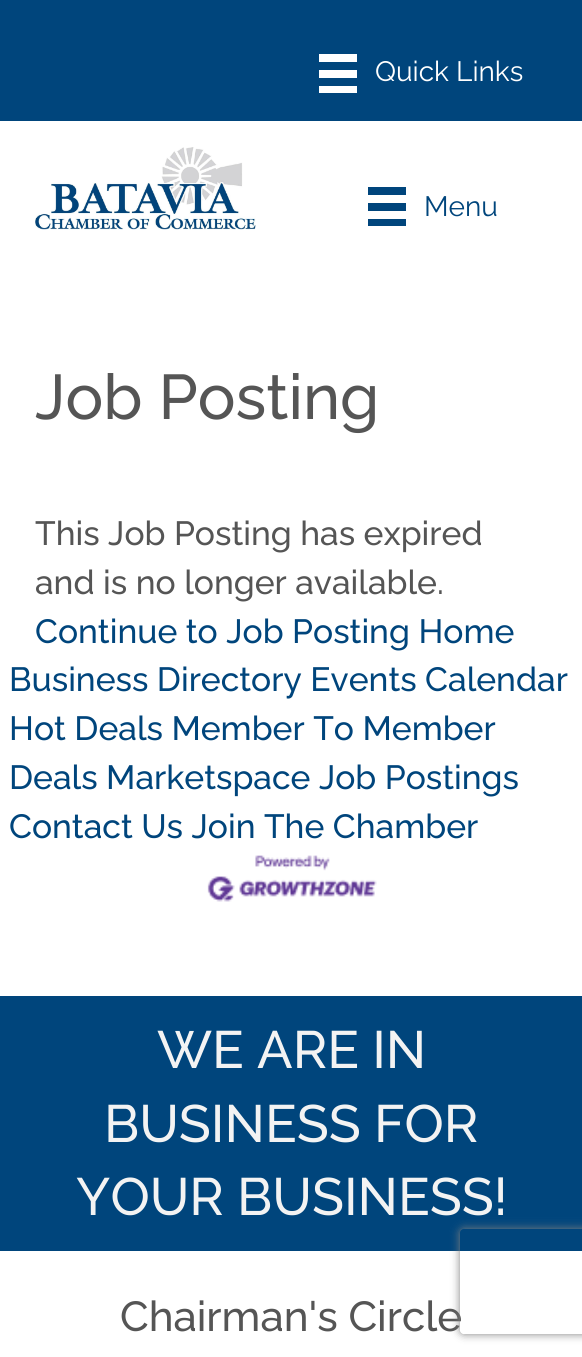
#include <cairo.h>
#include <math.h>
#include <stddef.h>

static cairo_t *c;
static void C(unsigned color){cairo_set_source_rgb(c, (color >> 16) / 255.0, (color >> 8 & 255) / 255.0, (color & 255) / 255.0);}
static void F(const char *family, double size, int italic, int bold){cairo_select_font_face(c, family, italic ? CAIRO_FONT_SLANT_ITALIC : CAIRO_FONT_SLANT_NORMAL,bold ? CAIRO_FONT_WEIGHT_BOLD : CAIRO_FONT_WEIGHT_NORMAL);cairo_set_font_size(c, size);}
static void T(double x, double y, const char *s){cairo_move_to(c, x, y);cairo_show_text(c, s);}
static void R(double x, double y, double w, double h){cairo_rectangle(c, x, y, w, h);cairo_fill(c);}
static void Q(double x, double y, double w, double h, double r){cairo_new_sub_path(c);cairo_arc(c, x + w - r, y + h - r, r, 0, M_PI / 2);cairo_arc(c, x + r, y + h - r, r, M_PI / 2, M_PI);cairo_arc(c, x + r, y + r, r, M_PI, 1.5 * M_PI);cairo_arc(c, x + w - r, y + r, r, 1.5 * M_PI, 2 * M_PI);cairo_close_path(c);}
static void S(double x, double y, double w, double h, double r, double blur, double alpha){cairo_push_group_with_content(c, CAIRO_CONTENT_ALPHA);cairo_set_operator(c, CAIRO_OPERATOR_SOURCE);for (int i = 15; i >= -15 && fmin(w, h) + blur * i / 3 > 0; i -= 2) {double e = blur * i / 6;cairo_set_source_rgba(c, 0, 0, 0, alpha * erfc((i - 1) / 8.5) / 2);Q(x - e, y - e, w + 2 * e, h + 2 * e, fmax(0, fmin(r + e + blur * .6, fmin(w, h) / 2 + e)));cairo_fill(c);}cairo_pattern_t *soft = cairo_pop_group(c);cairo_mask(c, soft);cairo_pattern_destroy(soft);}
static void I(const char *path, double x, double y, double w, double h){cairo_surface_t *image = cairo_image_surface_create_from_png(path);cairo_save(c);cairo_set_source_surface(c, image, x, y);cairo_rectangle(c, x, y, w, h);cairo_fill(c);cairo_restore(c);cairo_surface_destroy(image);}
int main(void) {
cairo_surface_t *surface = cairo_image_surface_create(CAIRO_FORMAT_RGB24, 582, 1357);
c = cairo_create(surface);
cairo_font_options_t *options = cairo_font_options_create();
cairo_font_options_set_hint_metrics(options, CAIRO_HINT_METRICS_OFF);
cairo_font_options_set_hint_style(options, CAIRO_HINT_STYLE_NONE);
cairo_set_font_options(c, options);
cairo_set_miter_limit(c, 4);
C(0xffffff);
cairo_paint(c);
C(0x00457c);
R(0,0,582,121);
C(0xffffff);
R(319,54,38,8);
R(319,70,38,8);
R(319,86,38,7);
F("Raleway",28,0,0);
T(375,81,"Quick Links");
I("1.png",35,147,221,83);
C(0x00457c);
R(368,187,38,8);
R(368,203,38,8);
R(368,219,38,7);
T(424,216,"Menu");
F("Raleway Medium",63,0,0);
C(0x555555);
T(35,419,"Job Posting");
F("Raleway Medium",33.6,0,0);
T(35,545,"This Job Posting has expired");
T(35,594,"and is no longer available.");
C(0x00457c);
T(35,643,"Continue to Job Posting Home");
T(9,691,"Business Directory Events Calendar");
T(9,740,"Hot Deals Member To Member");
T(9,789,"Deals Marketspace Job Postings");
T(9,838,"Contact Us Join The Chamber");
I("2.png",207,855,170,47);
R(0,996,582,255);
F("Raleway Medium",52.5,0,0);
C(0xf3f3f3);
T(157,1068,"WE ARE IN");
T(104,1142,"BUSINESS FOR");
T(76,1215,"YOUR BUSINESS!");
F("Raleway Medium",42,0,0);
C(0x555555);
T(120,1331,"Chairman's Circle");
cairo_save(c);
cairo_set_fill_rule(c,CAIRO_FILL_RULE_EVEN_ODD);
cairo_new_path(c);
cairo_move_to(c,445,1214);
cairo_line_to(c,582,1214);
cairo_line_to(c,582,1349);
cairo_line_to(c,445,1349);
cairo_close_path(c);
cairo_move_to(c,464,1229);
cairo_line_to(c,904,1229);
cairo_curve_to(c,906,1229,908,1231,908,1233);
cairo_line_to(c,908,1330);
cairo_curve_to(c,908,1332,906,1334,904,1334);
cairo_line_to(c,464,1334);
cairo_curve_to(c,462,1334,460,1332,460,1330);
cairo_line_to(c,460,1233);
cairo_curve_to(c,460,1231,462,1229,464,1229);
cairo_close_path(c);
cairo_clip(c);
C(0x808080);
S(460,1229,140,105,4,4.5,1);
cairo_restore(c);
cairo_surface_write_to_png(surface, "o.png");
cairo_font_options_destroy(options);
cairo_destroy(c);
cairo_surface_destroy(surface);
return 0;
}
